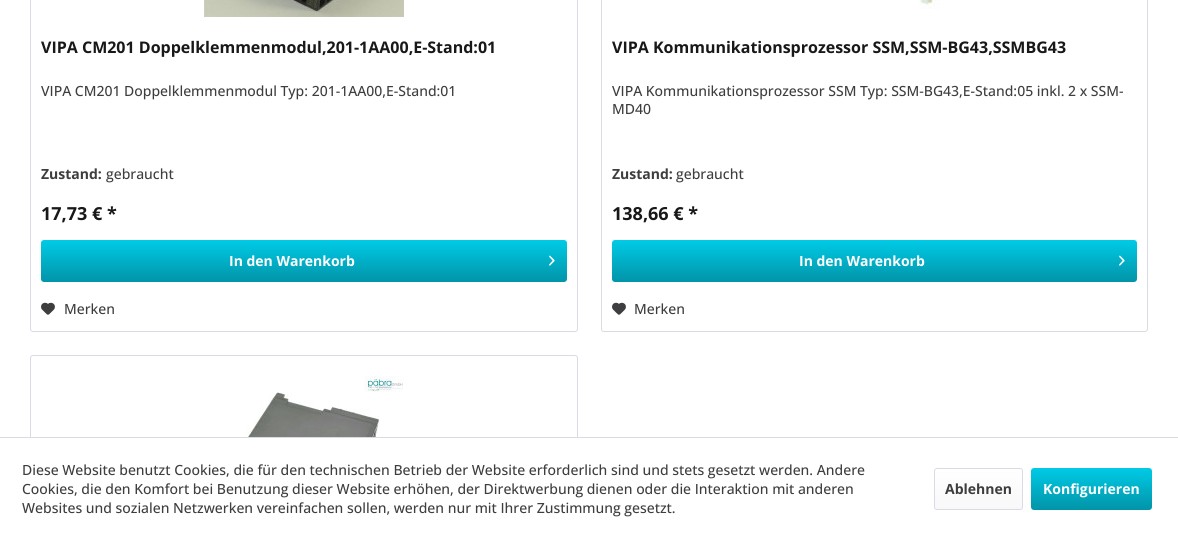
#include <cairo.h>
#include <math.h>
#include <stddef.h>

static cairo_t *c;
static void C(unsigned color){cairo_set_source_rgb(c, (color >> 16) / 255.0, (color >> 8 & 255) / 255.0, (color & 255) / 255.0);}
static void F(const char *family, double size, int italic, int bold){cairo_select_font_face(c, family, italic ? CAIRO_FONT_SLANT_ITALIC : CAIRO_FONT_SLANT_NORMAL,bold ? CAIRO_FONT_WEIGHT_BOLD : CAIRO_FONT_WEIGHT_NORMAL);cairo_set_font_size(c, size);}
static void T(double x, double y, const char *s){cairo_move_to(c, x, y);cairo_show_text(c, s);}
static void R(double x, double y, double w, double h){cairo_rectangle(c, x, y, w, h);cairo_fill(c);}
static void Q(double x, double y, double w, double h, double r){cairo_new_sub_path(c);cairo_arc(c, x + w - r, y + h - r, r, 0, M_PI / 2);cairo_arc(c, x + r, y + h - r, r, M_PI / 2, M_PI);cairo_arc(c, x + r, y + r, r, M_PI, 1.5 * M_PI);cairo_arc(c, x + w - r, y + r, r, 1.5 * M_PI, 2 * M_PI);cairo_close_path(c);}
static void I(const char *path, double x, double y, double w, double h){cairo_surface_t *image = cairo_image_surface_create_from_png(path);cairo_save(c);cairo_set_source_surface(c, image, x, y);cairo_rectangle(c, x, y, w, h);cairo_fill(c);cairo_restore(c);cairo_surface_destroy(image);}
int main(void) {
cairo_surface_t *surface = cairo_image_surface_create(CAIRO_FORMAT_RGB24, 1178, 539);
c = cairo_create(surface);
cairo_font_options_t *options = cairo_font_options_create();
cairo_font_options_set_hint_metrics(options, CAIRO_HINT_METRICS_OFF);
cairo_font_options_set_hint_style(options, CAIRO_HINT_STYLE_NONE);
cairo_set_font_options(c, options);
cairo_set_miter_limit(c, 4);
cairo_pattern_t *gradient;
C(0xffffff);
cairo_paint(c);
Q(30.5,-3.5,547,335,2.5);
C(0xdadae5);
cairo_set_line_width(c,1);
cairo_stroke(c);
I("1.png",204,0,200,17);
F("Open Sans",16,0,1);
C(0x181819);
T(41,53,"VIPA CM201 Doppelklemmenmodul,201-1AA00,E-Stand:01");
F("Open Sans Medium",14,0,0);
C(0x3e3d40);
T(41,96,"VIPA CM201 Doppelklemmenmodul Typ: 201-1AA00,E-Stand:01");
F("Open Sans",14,0,1);
T(41,179,"Zustand:");
F("Open Sans Medium",14,0,0);
T(106,179,"gebraucht");
F("Open Sans",18,0,1);
C(0x181819);
T(41,220,"17,73 € *");
gradient = cairo_pattern_create_linear(304,240,304,282);
cairo_pattern_add_color_stop_rgba(gradient,0,0,0.796,0.902,1);
cairo_pattern_add_color_stop_rgba(gradient,1,0.004,0.58,0.659,1);
cairo_set_source(c,gradient);
cairo_pattern_destroy(gradient);
Q(41,240,526,42,3);
cairo_fill(c);
F("Open Sans",14,0,1);
C(0xffffff);
T(229,266,"In den Warenkorb");
I("2.png",549,255,6,11);
I("3.png",41,302,14,13);
F("Open Sans Medium",14,0,0);
C(0x3e3d40);
T(64,314,"Merken");
Q(601.5,-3.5,546,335,2.5);
C(0xdadae5);
cairo_stroke(c);
I("4.png",919,0,21,9);
F("Open Sans",16,0,1);
C(0x181819);
T(612,53,"VIPA Kommunikationsprozessor SSM,SSM-BG43,SSMBG43");
F("Open Sans Medium",14,0,0);
C(0x3e3d40);
T(612,96,"VIPA Kommunikationsprozessor SSM Typ: SSM-BG43,E-Stand:05 inkl. 2 x SSM-");
T(612,114,"MD40");
F("Open Sans",14,0,1);
T(612,179,"Zustand:");
F("Open Sans Medium",14,0,0);
T(676,179,"gebraucht");
F("Open Sans",18,0,1);
C(0x181819);
T(612,220,"138,66 € *");
gradient = cairo_pattern_create_linear(875,240,875,282);
cairo_pattern_add_color_stop_rgba(gradient,0,0,0.796,0.902,1);
cairo_pattern_add_color_stop_rgba(gradient,1,0.004,0.58,0.659,1);
cairo_set_source(c,gradient);
cairo_pattern_destroy(gradient);
Q(612,240,525,42,3);
cairo_fill(c);
F("Open Sans",14,0,1);
C(0xffffff);
T(799,266,"In den Warenkorb");
I("2.png",1119,255,6,11);
I("3.png",612,302,14,13);
F("Open Sans Medium",14,0,0);
C(0x3e3d40);
T(634,314,"Merken");
Q(30.5,355.5,547,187,2.5);
C(0xdadae5);
cairo_stroke(c);
I("5.png",217,376,186,61);
C(0xffffff);
R(30,438,548,101);
C(0xdadae5);
R(0,437,1178,1);
C(0x3e3d40);
T(22,475,"Diese Website benutzt Cookies, die für den technischen Betrieb der Website erforderlich sind und stets gesetzt werden. Andere");
T(22,494,"Cookies, die den Komfort bei Benutzung dieser Website erhöhen, der Direktwerbung dienen oder die Interaktion mit anderen");
T(22,513,"Websites und sozialen Netzwerken vereinfachen sollen, werden nur mit Ihrer Zustimmung gesetzt.");
gradient = cairo_pattern_create_linear(979,469,979,509);
cairo_pattern_add_color_stop_rgba(gradient,0,1,1,1,1);
cairo_pattern_add_color_stop_rgba(gradient,1,0.973,0.973,0.98,1);
cairo_set_source(c,gradient);
cairo_pattern_destroy(gradient);
Q(935,469,87,40,2);
cairo_fill(c);
Q(934.5,468.5,88,41,2.5);
C(0xdadae5);
cairo_stroke(c);
F("Open Sans",14,0,1);
C(0x3e3d40);
T(945,494,"Ablehnen");
gradient = cairo_pattern_create_linear(1092,468,1092,510);
cairo_pattern_add_color_stop_rgba(gradient,0,0,0.796,0.902,1);
cairo_pattern_add_color_stop_rgba(gradient,1,0.004,0.58,0.659,1);
cairo_set_source(c,gradient);
cairo_pattern_destroy(gradient);
Q(1031,468,121,42,3);
cairo_fill(c);
C(0xffffff);
T(1043,494,"Konfigurieren");
cairo_surface_write_to_png(surface, "o.png");
cairo_font_options_destroy(options);
cairo_destroy(c);
cairo_surface_destroy(surface);
return 0;
}
